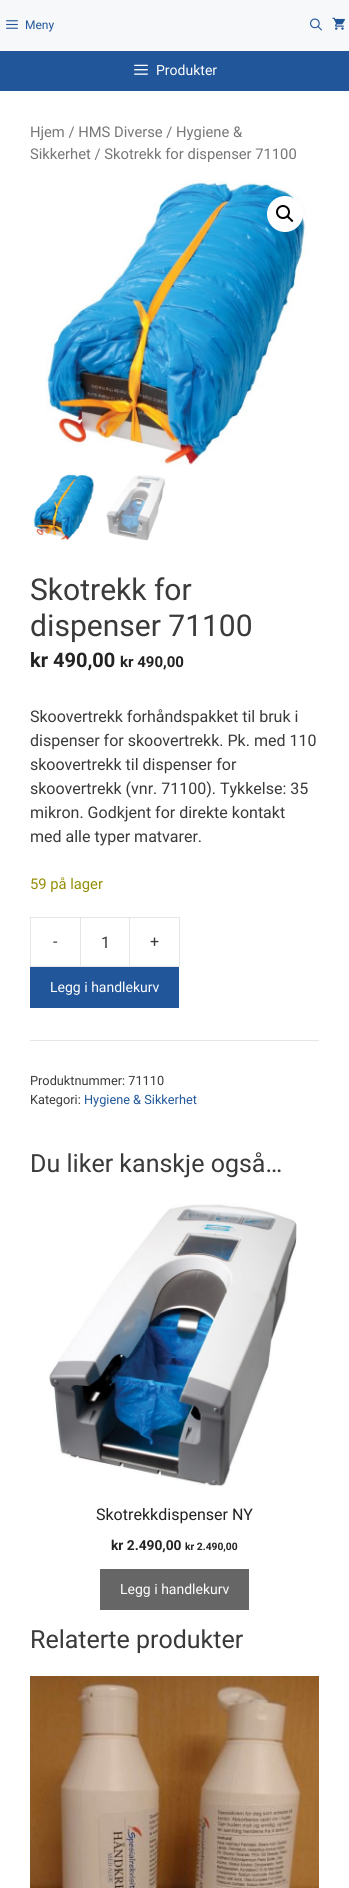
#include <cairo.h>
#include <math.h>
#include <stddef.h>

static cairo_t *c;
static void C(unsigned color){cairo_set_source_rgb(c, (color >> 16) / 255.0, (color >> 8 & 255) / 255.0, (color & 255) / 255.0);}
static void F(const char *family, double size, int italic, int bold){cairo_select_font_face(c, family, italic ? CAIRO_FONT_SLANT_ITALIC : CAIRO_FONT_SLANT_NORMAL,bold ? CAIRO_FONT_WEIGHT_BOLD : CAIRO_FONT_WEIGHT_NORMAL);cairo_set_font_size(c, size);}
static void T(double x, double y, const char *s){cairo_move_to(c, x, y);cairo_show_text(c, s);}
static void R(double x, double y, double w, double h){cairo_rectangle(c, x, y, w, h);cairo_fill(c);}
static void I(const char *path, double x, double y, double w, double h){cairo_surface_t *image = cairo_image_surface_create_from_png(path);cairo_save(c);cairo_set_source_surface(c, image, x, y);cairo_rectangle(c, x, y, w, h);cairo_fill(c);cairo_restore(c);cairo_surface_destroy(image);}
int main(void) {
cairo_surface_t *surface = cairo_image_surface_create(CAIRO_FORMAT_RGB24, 349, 1888);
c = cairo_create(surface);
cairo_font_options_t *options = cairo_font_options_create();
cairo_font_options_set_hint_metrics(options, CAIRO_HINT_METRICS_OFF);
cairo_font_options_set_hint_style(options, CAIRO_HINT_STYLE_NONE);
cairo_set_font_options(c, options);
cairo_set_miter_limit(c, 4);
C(0xffffff);
cairo_paint(c);
C(0xf7f8f9);
R(0,0,349,51);
I("1.png",6,20,12,9);
F("Heebo",12,0,0);
C(0x21569a);
T(25,29,"Meny");
I("2.png",310,18,12,13);
I("3.png",332,17,13,13);
R(0,51,349,40);
I("4.png",134,64,14,11);
F("Heebo",14,0,0);
C(0xffffff);
T(156,75,"Produkter");
F("Roboto",14.75,0,0);
C(0x767676);
T(30,137,"Hjem / HMS Diverse / Hygiene &");
T(30,159,"Sikkerhet / Skotrekk for dispenser 71100");
I("5.png",45,180,262,285);
C(0xffffff);
cairo_arc(c,285,214,18,0,2 * M_PI);
cairo_fill(c);
cairo_arc(c,283,212,6,0,2 * M_PI);
C(0x000000);
cairo_stroke(c);
cairo_new_path(c);
cairo_move_to(c,287,216);
cairo_curve_to(c,288.5,215,290,217.5,290.5,218);
cairo_curve_to(c,291.5,219,294,220.5,293,221.5);
cairo_curve_to(c,291.5,223,290,220,289.5,219.5);
cairo_curve_to(c,288.5,219,286,217,287,216);
cairo_close_path(c);
cairo_fill(c);
I("6.png",33,474,62,67);
I("7.png",106,475,59,66);
F("Heebo",30,0,0);
C(0x3a3a3a);
T(30,600,"Skotrekk for");
T(30,636,"dispenser 71100");
F("Roboto",20,0,1);
C(0x222222);
T(30,667,"kr 490,00");
F("Roboto",15,0,1);
T(120,667,"kr 490,00");
F("Roboto",16,0,0);
C(0x3a3a3a);
T(30,722,"Skoovertrekk forhåndspakket til bruk i");
T(30,746,"dispenser for skoovertrekk. Pk. med 110");
T(30,770,"skoovertrekk til dispenser for");
T(30,794,"skoovertrekk (vnr. 71100). Tykkelse: 35");
T(30,818,"mikron. Godkjent for direkte kontakt");
T(30,842,"med alle typer matvarer.");
F("Roboto",14.75,0,0);
C(0x958e09);
T(30,889,"59 på lager");
C(0xe6e6e6);
cairo_new_path(c);
cairo_move_to(c,30,917);
cairo_line_to(c,80,917);
cairo_line_to(c,80,918);
cairo_line_to(c,31,918);
cairo_close_path(c);
cairo_move_to(c,80,967);
cairo_line_to(c,30,967);
cairo_line_to(c,31,966);
cairo_line_to(c,80,966);
cairo_close_path(c);
cairo_fill(c);
cairo_set_source_rgba(c,0,0,0,0.1);
cairo_new_path(c);
cairo_move_to(c,30,967);
cairo_line_to(c,30,917);
cairo_line_to(c,31,918);
cairo_line_to(c,31,966);
cairo_close_path(c);
cairo_fill(c);
F("Roboto",16,0,0);
C(0x3a3a3a);
T(53,947,"-");
cairo_rectangle(c,80.5,917.5,49,49);
C(0xe6e6e6);
cairo_set_line_width(c,1);
cairo_stroke(c);
C(0x3a3a3a);
T(101,948,"1");
C(0xe6e6e6);
cairo_new_path(c);
cairo_move_to(c,130,917);
cairo_line_to(c,180,917);
cairo_line_to(c,179,918);
cairo_line_to(c,130,918);
cairo_close_path(c);
cairo_fill(c);
cairo_set_source_rgba(c,0,0,0,0.1);
cairo_new_path(c);
cairo_move_to(c,180,917);
cairo_line_to(c,180,967);
cairo_line_to(c,179,966);
cairo_line_to(c,179,918);
cairo_close_path(c);
cairo_fill(c);
cairo_new_path(c);
cairo_move_to(c,180,967);
cairo_line_to(c,130,967);
cairo_line_to(c,130,966);
cairo_line_to(c,179,966);
cairo_close_path(c);
cairo_fill(c);
C(0x3a3a3a);
T(150,947,"+");
C(0x21569a);
R(30,967,149,41);
F("Heebo",14,0,0);
C(0xffffff);
T(50,992,"Legg i handlekurv");
C(0xe6e6e6);
R(30,1040,289,1);
F("Roboto",12.75,0,0);
C(0x3a3a3a);
T(30,1085,"Produktnummer: 71110");
T(30,1104,"Kategori:");
C(0x21569a);
T(84,1104,"Hygiene & Sikkerhet");
F("Heebo",25,0,0);
C(0x3a3a3a);
T(30,1172,"Du liker kanskje også…");
I("8.png",49,1204,248,283);
F("Heebo",16,0,0);
C(0x222222);
T(96,1520,"Skotrekkdispenser NY");
F("Roboto",13.75,0,1);
T(111,1550,"kr 2.490,00");
F("Roboto",10.25,0,1);
T(185,1550,"kr 2.490,00");
C(0x666666);
R(100,1569,149,41);
F("Heebo",14,0,0);
C(0xffffff);
T(120,1594,"Legg i handlekurv");
F("Heebo",25,0,0);
C(0x3a3a3a);
T(30,1648,"Relaterte produkter");
I("9.png",30,1676,289,212);
cairo_surface_write_to_png(surface, "o.png");
cairo_font_options_destroy(options);
cairo_destroy(c);
cairo_surface_destroy(surface);
return 0;
}
